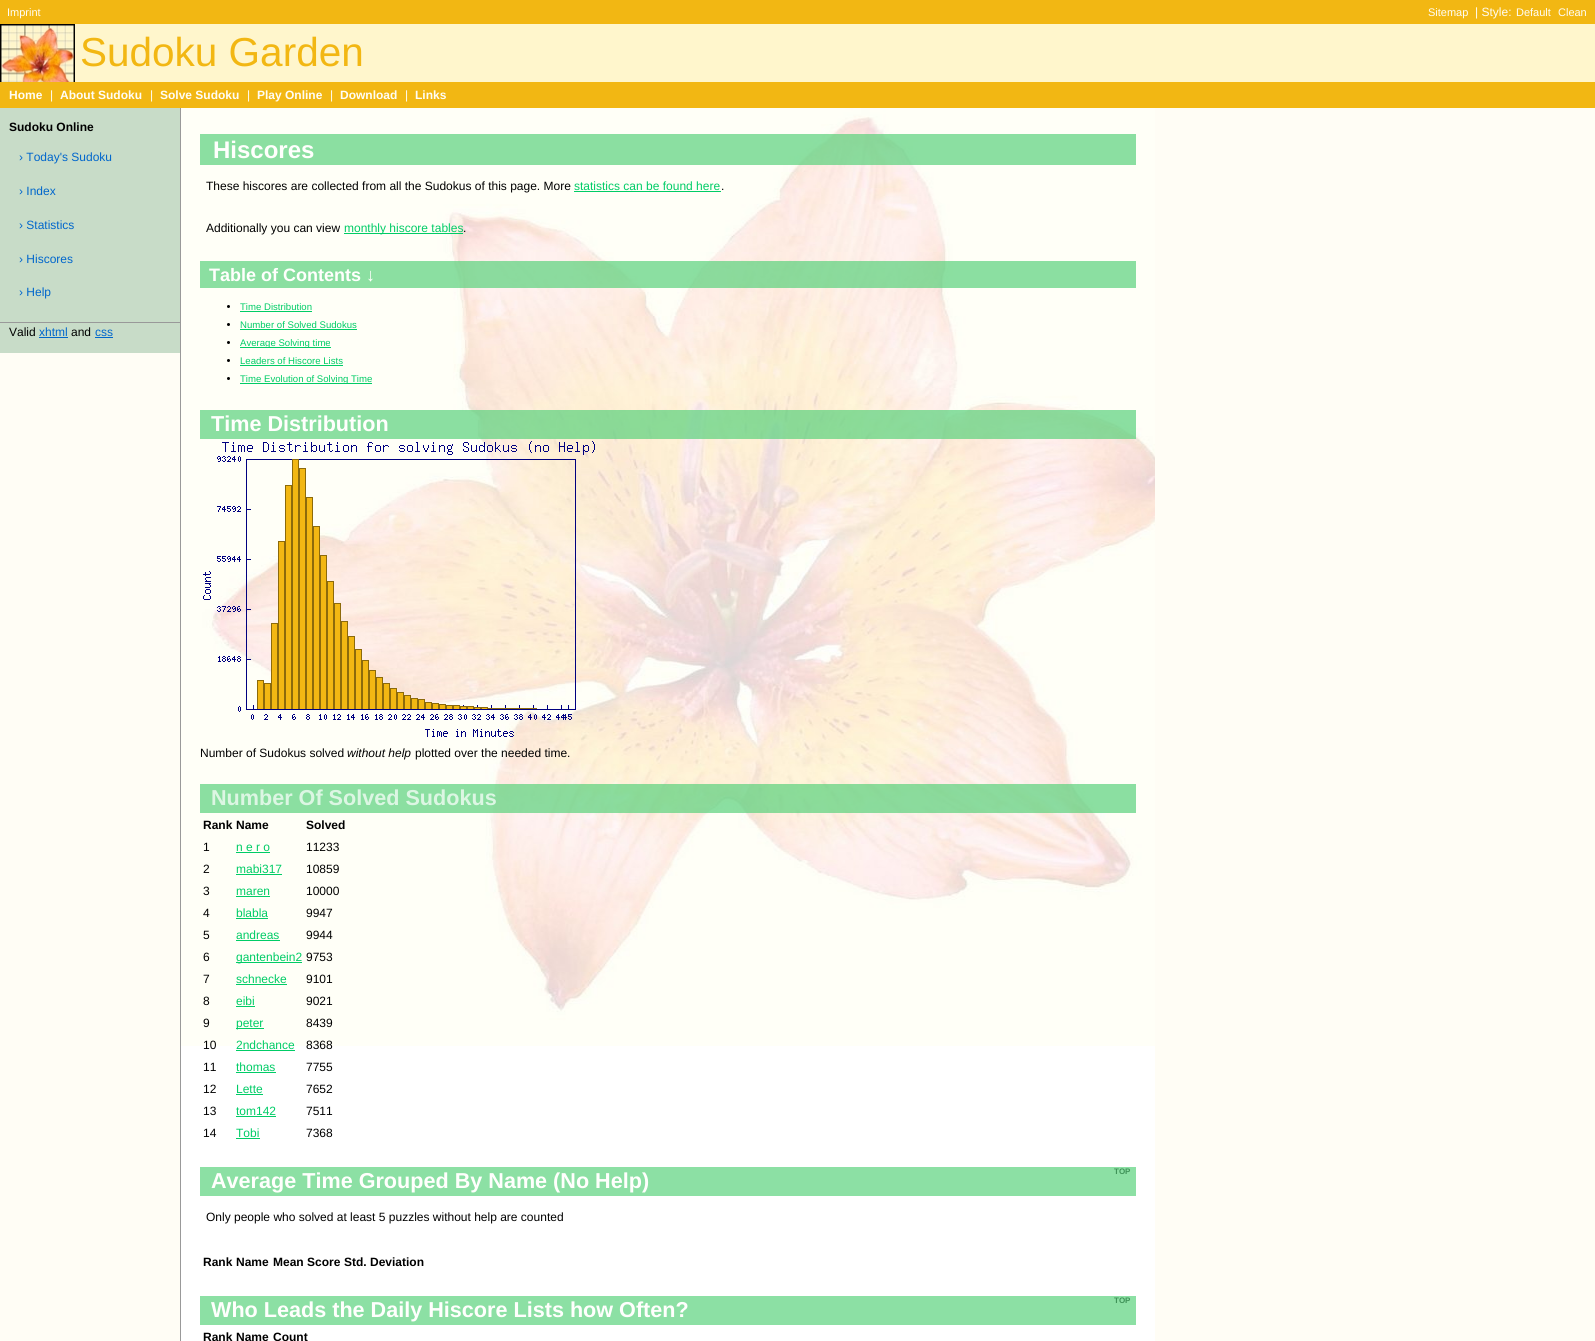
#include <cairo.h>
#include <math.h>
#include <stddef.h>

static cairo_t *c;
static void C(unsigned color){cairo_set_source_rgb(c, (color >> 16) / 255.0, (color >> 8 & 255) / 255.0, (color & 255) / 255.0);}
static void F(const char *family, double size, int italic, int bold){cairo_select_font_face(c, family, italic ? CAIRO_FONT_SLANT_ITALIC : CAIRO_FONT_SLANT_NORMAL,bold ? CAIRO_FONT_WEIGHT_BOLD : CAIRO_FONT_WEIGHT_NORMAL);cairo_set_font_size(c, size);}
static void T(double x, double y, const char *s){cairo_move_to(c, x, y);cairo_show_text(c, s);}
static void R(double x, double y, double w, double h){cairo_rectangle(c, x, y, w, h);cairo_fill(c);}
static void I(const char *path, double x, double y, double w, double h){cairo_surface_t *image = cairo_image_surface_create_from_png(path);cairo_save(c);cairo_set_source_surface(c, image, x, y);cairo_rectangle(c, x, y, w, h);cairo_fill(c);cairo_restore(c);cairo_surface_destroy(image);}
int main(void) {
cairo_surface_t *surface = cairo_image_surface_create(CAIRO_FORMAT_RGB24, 1595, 1341);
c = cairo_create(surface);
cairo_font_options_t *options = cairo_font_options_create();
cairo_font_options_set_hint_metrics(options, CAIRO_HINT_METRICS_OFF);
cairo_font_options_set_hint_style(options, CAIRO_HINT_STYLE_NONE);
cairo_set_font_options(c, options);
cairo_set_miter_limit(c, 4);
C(0xfffdf5);
cairo_paint(c);
C(0xf2b713);
R(0,0,1595,24);
F("Liberation Sans",11,0,0);
C(0xfffdf5);
T(7,16,"Imprint");
T(1428,16,"Sitemap");
F("Liberation Sans",12,0,0);
T(1475,16,"| Style:");
F("Liberation Sans",11,0,0);
T(1516,16,"Default");
T(1558,16,"Clean");
C(0xfff6cc);
R(75,24,1520,58);
I("1.png",0,24,75,58);
F("Liberation Sans",40.5,0,0);
C(0xf2b713);
T(80,66,"Sudoku Garden");
R(0,82,1595,26);
F("Liberation Sans",12,0,1);
C(0xfffdf5);
T(9,99,"Home");
F("Liberation Sans",12,0,0);
T(50,99,"|");
F("Liberation Sans",12,0,1);
T(60,99,"About Sudoku");
F("Liberation Sans",12,0,0);
T(150,99,"|");
F("Liberation Sans",12,0,1);
T(160,99,"Solve Sudoku");
F("Liberation Sans",12,0,0);
T(247,99,"|");
F("Liberation Sans",12,0,1);
T(257,99,"Play Online");
F("Liberation Sans",12,0,0);
T(330,99,"|");
F("Liberation Sans",12,0,1);
T(340,99,"Download");
F("Liberation Sans",12,0,0);
T(405,99,"|");
F("Liberation Sans",12,0,1);
T(415,99,"Links");
C(0xc8dcc8);
R(0,108,180,245);
C(0x999999);
R(0,322,180,1);
C(0x000000);
T(9,131,"Sudoku Online");
F("Liberation Sans",12,0,0);
C(0x0066cc);
T(19,161,"› Today's Sudoku");
T(19,195,"› Index");
T(19,229,"› Statistics");
T(19,263,"› Hiscores");
T(19,296,"› Help");
C(0x000000);
T(9,336,"Valid");
C(0x0066cc);
T(39,336,"xhtml");
R(39,337,29,1);
C(0x000000);
T(71,336,"and");
C(0x0066cc);
T(95,336,"css");
R(95,337,18,1);
C(0xffffff);
R(181,1046,974,295);
C(0x8ce0a4);
R(200,1296,936,29);
R(200,1167,936,29);
I("2.png",181,108,974,938);
C(0x999999);
R(180,108,1,1233);
cairo_set_source_rgba(c,0.353,0.824,0.49,0.7);
R(200,134,936,31);
F("Liberation Sans",24,0,1);
C(0xfffffd);
T(213,158,"Hiscores");
F("Liberation Sans",12,0,0);
C(0x000000);
T(206,190,"These hiscores are collected from all the Sudokus of this page. More");
C(0x00cc66);
T(574,190,"statistics can be found here");
R(574,191,147,1);
C(0x000000);
T(721,190,".");
T(206,232,"Additionally you can view");
C(0x00cc66);
R(344,233,119,1);
T(344,232,"monthly hiscore tables");
C(0x000000);
T(463,232,".");
cairo_set_source_rgba(c,0.353,0.824,0.49,0.7);
R(200,261,936,27);
F("Liberation Sans",18,0,1);
C(0xfffffd);
T(209,281,"Table of Contents ↓");
C(0x000000);
cairo_new_path(c);
cairo_arc(c,228.5,306.5,1.5,0,2 * M_PI);
cairo_fill(c);
F("Liberation Sans",9.6,0,0);
C(0x00cc66);
T(240,310,"Time Distribution");
R(240,311,72,1);
C(0x000000);
cairo_new_path(c);
cairo_arc(c,228.5,324.5,1.5,0,2 * M_PI);
cairo_fill(c);
C(0x00cc66);
T(240,328,"Number of Solved Sudokus");
R(240,329,117,1);
C(0x000000);
cairo_new_path(c);
cairo_arc(c,228.5,342.5,1.5,0,2 * M_PI);
cairo_fill(c);
C(0x00cc66);
R(240,347,91,1);
T(240,346,"Average Solving time");
C(0x000000);
cairo_new_path(c);
cairo_arc(c,228.5,360.5,1.5,0,2 * M_PI);
cairo_fill(c);
C(0x00cc66);
T(240,364,"Leaders of Hiscore Lists");
R(240,365,103,1);
C(0x000000);
cairo_new_path(c);
cairo_arc(c,228.5,378.5,1.5,0,2 * M_PI);
cairo_fill(c);
C(0x00cc66);
R(240,383,132,1);
T(240,382,"Time Evolution of Solving Time");
cairo_set_source_rgba(c,0.353,0.824,0.49,0.7);
R(200,410,936,29);
F("Liberation Sans",21.6,0,1);
C(0xfffffd);
T(211,431,"Time Distribution");
I("3.png",203,441,392,296);
F("Liberation Sans",12,0,0);
C(0x000000);
T(200,757,"Number of Sudokus solved");
F("Liberation Sans",12,1,0);
T(347,757,"without help");
F("Liberation Sans",12,0,0);
T(415,757,"plotted over the needed time.");
cairo_set_source_rgba(c,0.353,0.824,0.49,0.7);
R(200,784,936,29);
F("Liberation Sans",21.6,0,1);
C(0xdcf6e3);
T(211,805,"Number Of Solved Sudokus");
F("Liberation Sans",12,0,1);
C(0x000000);
T(203,829,"Rank");
T(236,829,"Name");
T(306,829,"Solved");
F("Liberation Sans",12,0,0);
T(203,851,"1");
C(0x00cc66);
T(236,851,"n e r o");
R(236,852,34,1);
C(0x000000);
T(306,851,"11233");
T(203,873,"2");
C(0x00cc66);
T(236,873,"mabi317");
R(236,874,46,1);
C(0x000000);
T(306,873,"10859");
T(203,895,"3");
C(0x00cc66);
T(236,895,"maren");
R(236,896,34,1);
C(0x000000);
T(306,895,"10000");
T(203,917,"4");
C(0x00cc66);
T(236,917,"blabla");
R(236,918,32,1);
C(0x000000);
T(306,917,"9947");
T(203,939,"5");
C(0x00cc66);
T(236,939,"andreas");
R(236,940,44,1);
C(0x000000);
T(306,939,"9944");
T(203,961,"6");
C(0x00cc66);
R(236,962,66,1);
T(236,961,"gantenbein2");
C(0x000000);
T(306,961,"9753");
T(203,983,"7");
C(0x00cc66);
T(236,983,"schnecke");
R(236,984,51,1);
C(0x000000);
T(306,983,"9101");
T(203,1005,"8");
C(0x00cc66);
T(236,1005,"eibi");
R(236,1006,19,1);
C(0x000000);
T(306,1005,"9021");
T(203,1027,"9");
C(0x00cc66);
R(236,1028,28,1);
T(236,1027,"peter");
C(0x000000);
T(306,1027,"8439");
T(203,1049,"10");
C(0x00cc66);
T(236,1049,"2ndchance");
R(236,1050,59,1);
C(0x000000);
T(306,1049,"8368");
T(203,1071,"11");
C(0x00cc66);
T(236,1071,"thomas");
R(236,1072,40,1);
C(0x000000);
T(306,1071,"7755");
T(203,1093,"12");
C(0x00cc66);
T(236,1093,"Lette");
R(236,1094,27,1);
C(0x000000);
T(306,1093,"7652");
T(203,1115,"13");
C(0x00cc66);
T(236,1115,"tom142");
R(236,1116,40,1);
C(0x000000);
T(306,1115,"7511");
T(203,1137,"14");
C(0x00cc66);
T(236,1137,"Tobi");
R(236,1138,24,1);
C(0x000000);
T(306,1137,"7368");
F("Liberation Sans",21.6,0,1);
C(0xfffffd);
T(211,1188,"Average Time Grouped By Name (No Help)");
F("Liberation Sans",8,0,1);
C(0x3f9358);
T(1114,1174,"TOP");
F("Liberation Sans",12,0,0);
C(0x000000);
T(206,1221,"Only people who solved at least 5 puzzles without help are counted");
F("Liberation Sans",12,0,1);
T(203,1266,"Rank");
T(236,1266,"Name");
T(273,1266,"Mean Score");
T(344,1266,"Std. Deviation");
F("Liberation Sans",21.6,0,1);
C(0xfffffd);
T(211,1317,"Who Leads the Daily Hiscore Lists how Often?");
F("Liberation Sans",8,0,1);
C(0x3f9358);
T(1114,1303,"TOP");
F("Liberation Sans",12,0,1);
C(0x000000);
T(203,1341,"Rank");
T(236,1341,"Name");
T(273,1341,"Count");
cairo_surface_write_to_png(surface, "o.png");
cairo_font_options_destroy(options);
cairo_destroy(c);
cairo_surface_destroy(surface);
return 0;
}
